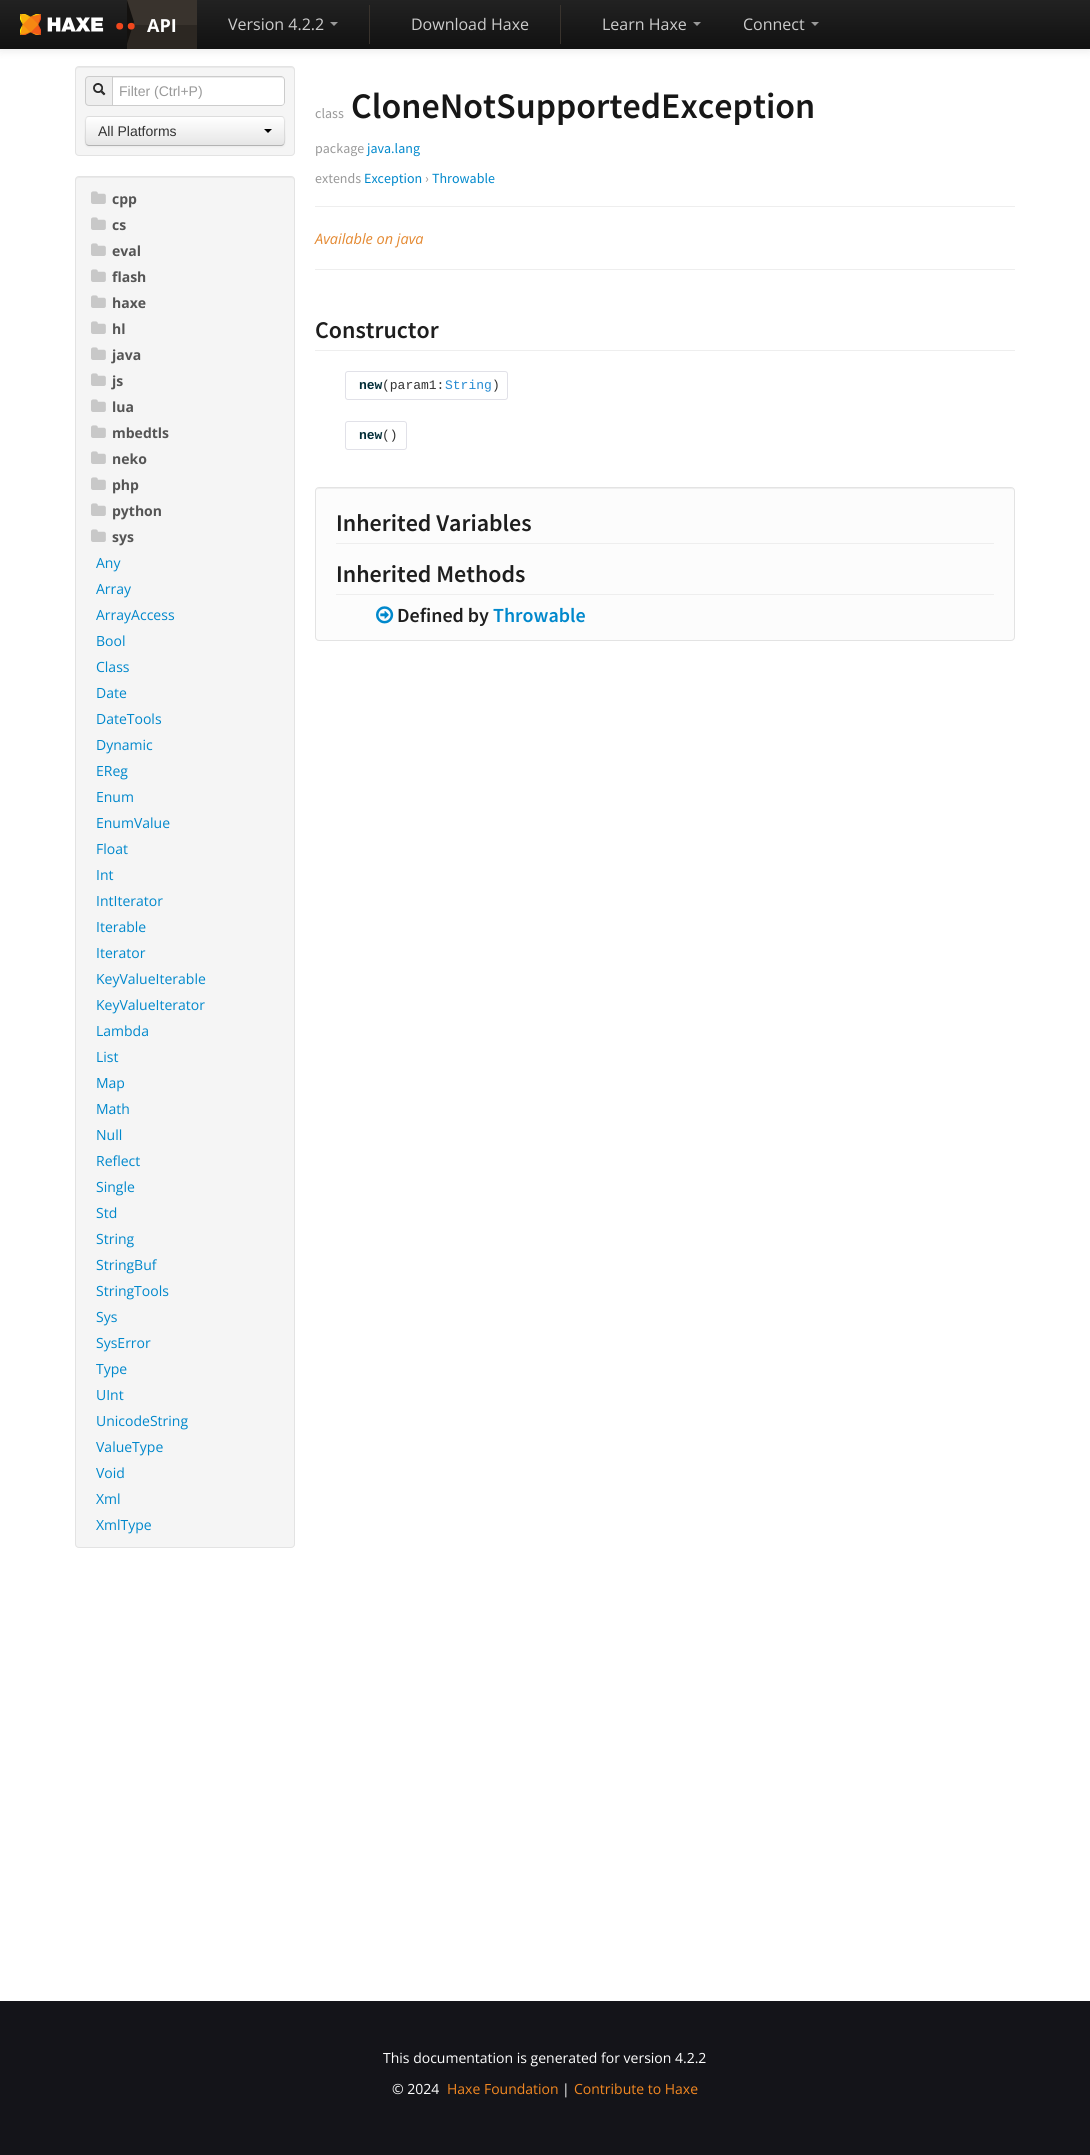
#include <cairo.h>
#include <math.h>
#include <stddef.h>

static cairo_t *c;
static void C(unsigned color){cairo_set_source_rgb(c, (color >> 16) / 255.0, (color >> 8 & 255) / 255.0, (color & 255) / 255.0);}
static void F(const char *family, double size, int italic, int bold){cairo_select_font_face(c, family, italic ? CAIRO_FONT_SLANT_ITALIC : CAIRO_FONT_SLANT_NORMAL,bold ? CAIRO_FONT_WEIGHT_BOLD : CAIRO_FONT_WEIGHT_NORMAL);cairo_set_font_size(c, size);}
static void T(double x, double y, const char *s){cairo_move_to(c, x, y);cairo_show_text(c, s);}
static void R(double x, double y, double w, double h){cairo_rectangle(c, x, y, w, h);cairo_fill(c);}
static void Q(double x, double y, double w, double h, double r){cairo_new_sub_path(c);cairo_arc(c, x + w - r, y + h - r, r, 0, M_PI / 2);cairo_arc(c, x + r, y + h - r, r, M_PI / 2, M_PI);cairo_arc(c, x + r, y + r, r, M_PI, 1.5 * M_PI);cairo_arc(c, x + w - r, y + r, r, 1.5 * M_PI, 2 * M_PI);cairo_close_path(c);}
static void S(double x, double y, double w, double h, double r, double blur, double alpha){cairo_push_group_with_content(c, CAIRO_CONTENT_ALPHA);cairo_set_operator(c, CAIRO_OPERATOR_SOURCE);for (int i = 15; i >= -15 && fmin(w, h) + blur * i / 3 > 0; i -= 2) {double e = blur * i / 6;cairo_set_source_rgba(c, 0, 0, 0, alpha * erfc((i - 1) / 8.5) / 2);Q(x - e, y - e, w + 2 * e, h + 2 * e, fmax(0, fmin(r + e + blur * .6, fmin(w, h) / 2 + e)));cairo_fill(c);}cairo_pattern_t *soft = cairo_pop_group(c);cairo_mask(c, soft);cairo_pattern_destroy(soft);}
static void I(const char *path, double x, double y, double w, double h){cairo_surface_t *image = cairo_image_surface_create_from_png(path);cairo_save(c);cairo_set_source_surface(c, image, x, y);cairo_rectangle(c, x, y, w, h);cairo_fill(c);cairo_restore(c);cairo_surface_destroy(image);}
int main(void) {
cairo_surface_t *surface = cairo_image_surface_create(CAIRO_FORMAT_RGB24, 1090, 2155);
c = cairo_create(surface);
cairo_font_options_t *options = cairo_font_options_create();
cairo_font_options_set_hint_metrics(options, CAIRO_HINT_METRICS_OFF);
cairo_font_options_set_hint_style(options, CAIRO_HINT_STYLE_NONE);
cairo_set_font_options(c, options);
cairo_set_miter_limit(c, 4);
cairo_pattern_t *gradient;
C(0xffffff);
cairo_paint(c);
C(0x000000);
S(0,1,1090,49,0,5,.1);
gradient = cairo_pattern_create_linear(545,0,545,49);
cairo_pattern_add_color_stop_rgba(gradient,0,0.133,0.133,0.133,1);
cairo_pattern_add_color_stop_rgba(gradient,1,0.067,0.067,0.067,1);
cairo_set_source(c,gradient);
cairo_pattern_destroy(gradient);
R(0,0,1090,49);
I("1.png",20,14,84,21);
C(0x39332d);
R(127,0,70,25);
C(0x2c2722);
R(127,25,70,24);
C(0x13110f);
cairo_new_path(c);
cairo_move_to(c,127,44);
cairo_line_to(c,127,0);
cairo_line_to(c,134,22);
cairo_close_path(c);
cairo_fill(c);
F("Open Sans",40,0,1);
C(0xf1471d);
T(114,29,"..");
F("Open Sans",18,0,1);
C(0xffffff);
T(147,32,"API");
F("Open Sans",16,0,0);
C(0xcccccc);
T(228,30,"Version 4.2.2");
C(0x999999);
cairo_new_path(c);
cairo_move_to(c,330,22);
cairo_line_to(c,338,22);
cairo_line_to(c,334,26);
cairo_close_path(c);
cairo_fill(c);
C(0x39332d);
R(369,5,1,39);
C(0xcccccc);
T(411,30,"Download Haxe");
C(0x39332d);
R(560,5,1,39);
C(0xcccccc);
T(602,30,"Learn Haxe");
C(0x999999);
cairo_new_path(c);
cairo_move_to(c,693,22);
cairo_line_to(c,701,22);
cairo_line_to(c,697,26);
cairo_close_path(c);
cairo_fill(c);
C(0xcccccc);
T(743,30,"Connect");
C(0x999999);
cairo_new_path(c);
cairo_move_to(c,811,22);
cairo_line_to(c,819,22);
cairo_line_to(c,815,26);
cairo_close_path(c);
cairo_fill(c);
C(0xf5f5f5);
Q(75,66,220,90,4);
cairo_fill(c);
C(0xe9e9e9);
cairo_new_path(c);
cairo_move_to(c,79,68);
cairo_line_to(c,291,68);
cairo_curve_to(c,293,68,294,69,294,71);
cairo_line_to(c,294,70);
cairo_curve_to(c,294,68,293,67,291,67);
cairo_line_to(c,79,67);
cairo_curve_to(c,77,67,76,68,76,70);
cairo_line_to(c,76,71);
cairo_curve_to(c,76,69,77,68,79,68);
cairo_close_path(c);
cairo_fill(c);
Q(75.5,66.5,219,89,3.5);
C(0xe3e3e3);
cairo_set_line_width(c,1);
cairo_stroke(c);
C(0xeeeeee);
cairo_new_path(c);
cairo_move_to(c,89,76.5);
cairo_line_to(c,112.5,76.5);
cairo_line_to(c,112.5,105.5);
cairo_line_to(c,89,105.5);
cairo_curve_to(c,87,105.5,85.5,104,85.5,102);
cairo_line_to(c,85.5,80);
cairo_curve_to(c,85.5,78,87,76.5,89,76.5);
cairo_close_path(c);
cairo_fill_preserve(c);
C(0xcccccc);
cairo_stroke(c);
I("2.png",93,83,13,13);
C(0xffffff);
cairo_new_path(c);
cairo_move_to(c,113,76);
cairo_line_to(c,281,76);
cairo_curve_to(c,283,76,285,78,285,80);
cairo_line_to(c,285,102);
cairo_curve_to(c,285,104,283,106,281,106);
cairo_line_to(c,113,106);
cairo_close_path(c);
cairo_fill(c);
C(0xececec);
cairo_new_path(c);
cairo_move_to(c,113,78);
cairo_line_to(c,281,78);
cairo_curve_to(c,283,78,284,79,284,81);
cairo_curve_to(c,284,79,284,77,282,77);
cairo_line_to(c,113,77);
cairo_close_path(c);
cairo_fill(c);
C(0xcccccc);
cairo_set_fill_rule(c,CAIRO_FILL_RULE_EVEN_ODD);
cairo_new_path(c);
cairo_move_to(c,113,76);
cairo_line_to(c,281,76);
cairo_curve_to(c,283,76,285,78,285,80);
cairo_line_to(c,285,102);
cairo_curve_to(c,285,104,283,106,281,106);
cairo_line_to(c,113,106);
cairo_close_path(c);
cairo_move_to(c,113,77);
cairo_line_to(c,281,77);
cairo_curve_to(c,283,77,284,78,284,80);
cairo_line_to(c,284,102);
cairo_curve_to(c,284,104,283,105,281,105);
cairo_line_to(c,113,105);
cairo_close_path(c);
cairo_fill(c);
F("Liberation Sans",14,0,0);
C(0x999999);
T(119,96,"Filter (Ctrl+P)");
C(0x000000);
S(85,117,200,30,4,1,.05);
C(0xf5f5f5);
Q(85,116,200,30,4);
cairo_fill(c);
cairo_save(c);
cairo_set_fill_rule(c,CAIRO_FILL_RULE_WINDING);
Q(85,116,200,30,4);
cairo_clip(c);
gradient = cairo_pattern_create_linear(185,117,185,145);
cairo_pattern_add_color_stop_rgba(gradient,0,1,1,1,1);
cairo_pattern_add_color_stop_rgba(gradient,1,0.902,0.902,0.902,1);
cairo_set_source(c,gradient);
cairo_pattern_destroy(gradient);
R(85,117,200,28);
cairo_restore(c);
cairo_new_path(c);
cairo_move_to(c,283.5,144.5);
cairo_curve_to(c,283,145,282,145.5,281,145.5);
cairo_line_to(c,89,145.5);
cairo_curve_to(c,88,145.5,87,145,86.5,144.5);
C(0xb3b3b3);
cairo_stroke(c);
cairo_new_path(c);
cairo_move_to(c,86.5,144.5);
cairo_curve_to(c,84.5,142.5,85.5,134,85.5,131);
cairo_line_to(c,85.5,123.5);
cairo_curve_to(c,85.5,121,85,116.5,89,116.5);
cairo_line_to(c,281,116.5);
cairo_curve_to(c,285,116.5,284.5,121,284.5,123.5);
cairo_line_to(c,284.5,131);
cairo_curve_to(c,284.5,134,285.5,142.5,283.5,144.5);
cairo_set_source_rgba(c,0,0,0,0.1);
cairo_stroke(c);
C(0x333333);
T(98,136,"All Platforms");
C(0x000000);
cairo_set_fill_rule(c,CAIRO_FILL_RULE_WINDING);
cairo_new_path(c);
cairo_move_to(c,264,129);
cairo_line_to(c,272,129);
cairo_line_to(c,268,133);
cairo_close_path(c);
cairo_fill(c);
C(0xf5f5f5);
Q(75,176,220,1372,4);
cairo_fill(c);
C(0xe9e9e9);
cairo_new_path(c);
cairo_move_to(c,79,178);
cairo_line_to(c,291,178);
cairo_curve_to(c,293,178,294,179,294,181);
cairo_line_to(c,294,180);
cairo_curve_to(c,294,178,293,177,291,177);
cairo_line_to(c,79,177);
cairo_curve_to(c,77,177,76,178,76,180);
cairo_line_to(c,76,181);
cairo_curve_to(c,76,179,77,178,79,178);
cairo_close_path(c);
cairo_fill(c);
Q(75.5,176.5,219,1371,3.5);
C(0xe3e3e3);
cairo_stroke(c);
I("3.png",91,191,15,13);
F("Open Sans",14,0,1);
C(0x555555);
T(112,204,"cpp");
I("3.png",91,217,15,13);
T(112,230,"cs");
I("3.png",91,243,15,13);
T(112,256,"eval");
I("3.png",91,269,15,13);
T(112,282,"flash");
I("3.png",91,295,15,13);
T(112,308,"haxe");
I("3.png",91,321,15,13);
T(112,334,"hl");
I("3.png",91,347,15,13);
T(112,360,"java");
I("3.png",91,373,15,13);
T(112,386,"js");
I("3.png",91,399,15,13);
T(112,412,"lua");
I("3.png",91,425,15,13);
T(112,438,"mbedtls");
I("3.png",91,451,15,13);
T(112,464,"neko");
I("3.png",91,477,15,13);
T(112,490,"php");
I("3.png",91,503,15,13);
T(112,516,"python");
I("3.png",91,529,15,13);
T(112,542,"sys");
F("Open Sans",14,0,0);
C(0x0088cc);
T(96,568,"Any");
T(96,594,"Array");
T(96,620,"ArrayAccess");
T(96,646,"Bool");
T(96,672,"Class");
T(96,698,"Date");
T(96,724,"DateTools");
T(96,750,"Dynamic");
T(96,776,"EReg");
T(96,802,"Enum");
T(96,828,"EnumValue");
T(96,854,"Float");
T(96,880,"Int");
T(96,906,"IntIterator");
T(96,932,"Iterable");
T(96,958,"Iterator");
T(96,984,"KeyValueIterable");
T(96,1010,"KeyValueIterator");
T(96,1036,"Lambda");
T(96,1062,"List");
T(96,1088,"Map");
T(96,1114,"Math");
T(96,1140,"Null");
T(96,1166,"Reflect");
T(96,1192,"Single");
T(96,1218,"Std");
T(96,1244,"String");
T(96,1270,"StringBuf");
T(96,1296,"StringTools");
T(96,1322,"Sys");
T(96,1348,"SysError");
T(96,1374,"Type");
T(96,1400,"UInt");
T(96,1426,"UnicodeString");
T(96,1452,"ValueType");
T(96,1478,"Void");
T(96,1504,"Xml");
T(96,1530,"XmlType");
C(0xeeeeee);
R(315,269,700,1);
F("Source Sans Pro",14,0,0);
C(0x999999);
T(315,118,"class");
F("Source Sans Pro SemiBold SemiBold",36,0,0);
C(0x171717);
T(351,118,"CloneNotSupportedException");
F("Source Sans Pro",14,0,0);
C(0x999999);
T(315,153,"package");
C(0x0088cc);
T(367,153,"java.lang");
C(0x999999);
T(315,183,"extends");
C(0x0088cc);
T(364,183,"Exception");
C(0x999999);
T(425,183,"›");
C(0x0088cc);
T(432,183,"Throwable");
C(0xeeeeee);
R(315,206,700,1);
F("Open Sans",14.5,1,0);
C(0xe48931);
T(315,244,"Available on java");
C(0xeeeeee);
R(315,350,700,1);
F("Source Sans Pro SemiBold SemiBold",24,0,0);
C(0x1e1e1e);
T(315,338,"Constructor");
Q(345.5,371.5,162,28,2.5);
C(0xe1e1e8);
cairo_stroke(c);
F("Liberation Mono",13,0,1);
C(0x002b36);
T(359,389,"new");
F("Liberation Mono",13,0,0);
C(0x333333);
T(382,389,"(param1:");
C(0x268bd2);
T(445,389,"String");
C(0x333333);
T(492,389,")");
Q(345.5,421.5,61,28,2.5);
C(0xe1e1e8);
cairo_stroke(c);
F("Liberation Mono",13,0,1);
C(0x002b36);
T(359,439,"new");
F("Liberation Mono",13,0,0);
C(0x333333);
T(382,439,"()");
C(0xfcfcfc);
Q(315,487,700,154,4);
cairo_fill(c);
C(0xefefef);
cairo_new_path(c);
cairo_move_to(c,319,489);
cairo_line_to(c,1011,489);
cairo_curve_to(c,1013,489,1014,490,1014,492);
cairo_curve_to(c,1014,490,1013,488,1011,488);
cairo_line_to(c,319,488);
cairo_curve_to(c,317,488,316,490,316,492);
cairo_curve_to(c,316,490,317,489,319,489);
cairo_close_path(c);
cairo_fill(c);
Q(315.5,487.5,699,153,3.5);
C(0xe3e3e3);
cairo_stroke(c);
C(0xeeeeee);
R(336,543,658,1);
F("Source Sans Pro SemiBold SemiBold",24,0,0);
C(0x1e1e1e);
T(336,531,"Inherited Variables");
C(0xeeeeee);
R(336,594,658,1);
C(0x1e1e1e);
T(336,582,"Inherited Methods");
I("4.png",376,606,18,18);
F("Source Sans Pro SemiBold SemiBold",20,0,0);
T(397,622,"Defined by");
C(0x0088cc);
T(493,622,"Throwable");
C(0x141419);
R(0,2001,1090,154);
F("Open Sans",14,0,0);
C(0xffffff);
T(383,2063,"This documentation is generated for version 4.2.2");
T(392,2094,"© 2024");
C(0xf48821);
T(447,2094,"Haxe Foundation");
C(0xffffff);
T(562,2094,"|");
C(0xf48821);
T(574,2094,"Contribute to Haxe");
cairo_surface_write_to_png(surface, "o.png");
cairo_font_options_destroy(options);
cairo_destroy(c);
cairo_surface_destroy(surface);
return 0;
}
